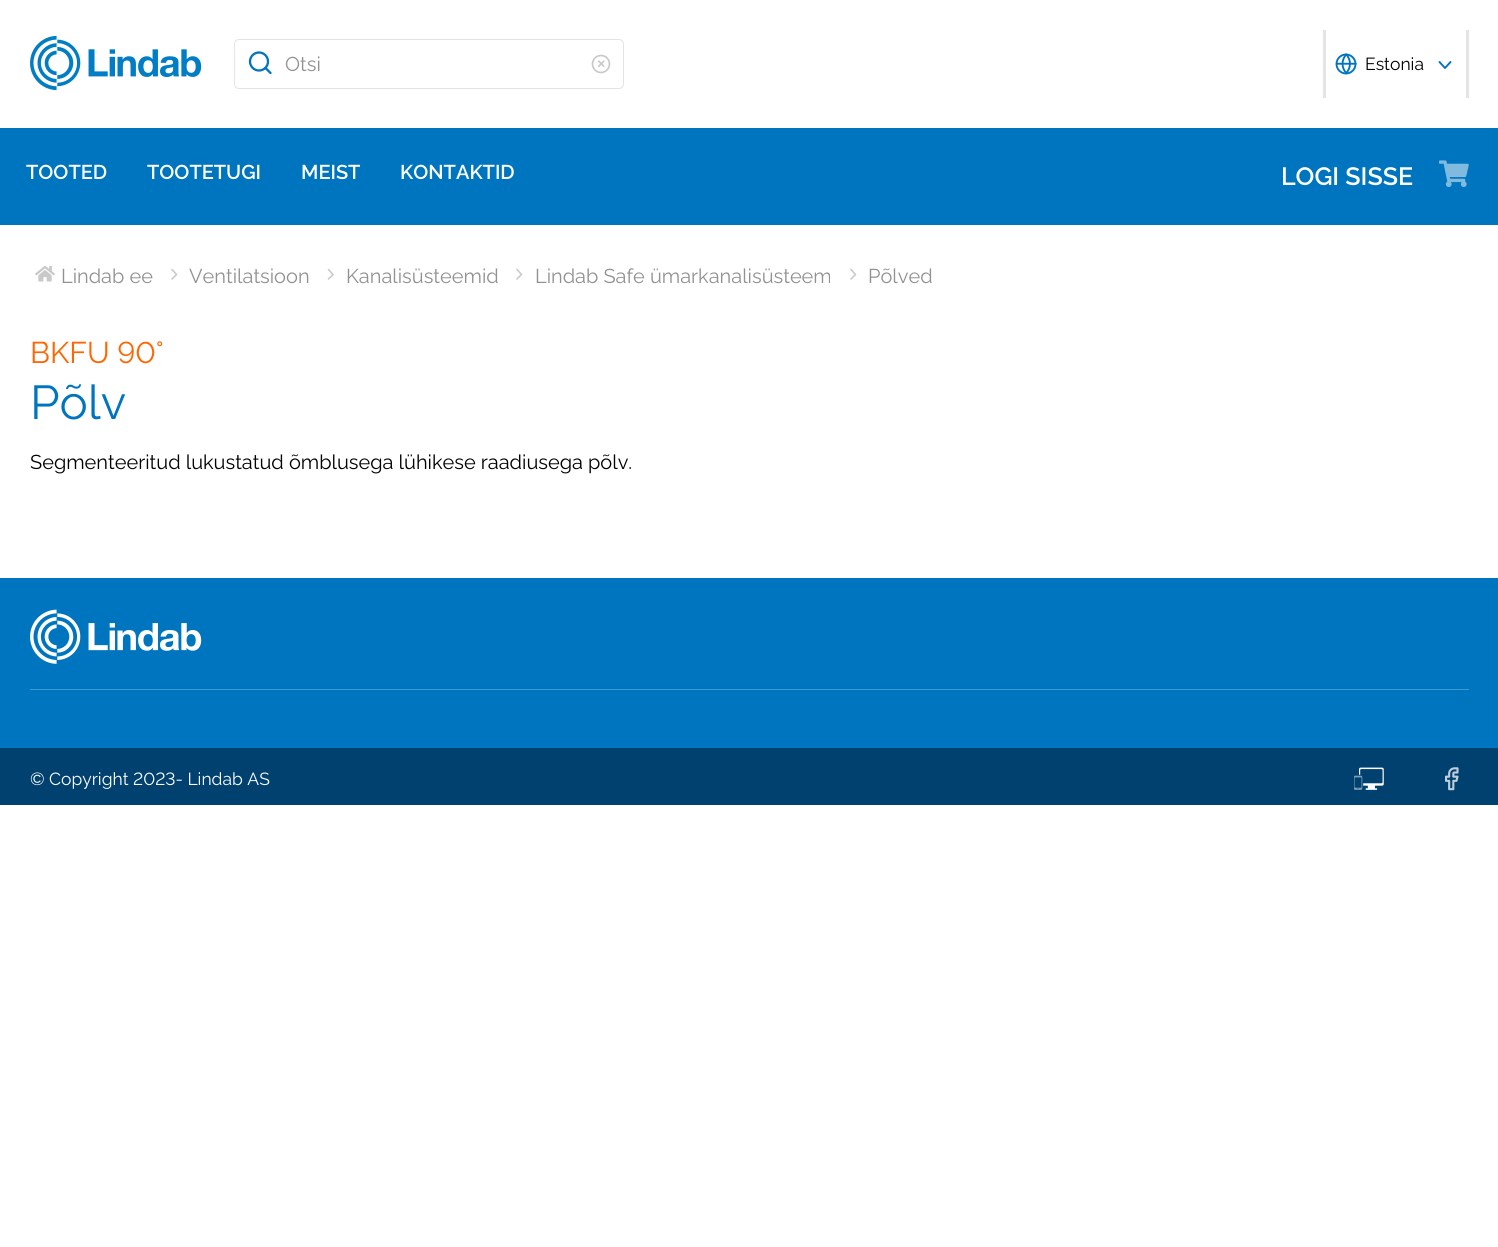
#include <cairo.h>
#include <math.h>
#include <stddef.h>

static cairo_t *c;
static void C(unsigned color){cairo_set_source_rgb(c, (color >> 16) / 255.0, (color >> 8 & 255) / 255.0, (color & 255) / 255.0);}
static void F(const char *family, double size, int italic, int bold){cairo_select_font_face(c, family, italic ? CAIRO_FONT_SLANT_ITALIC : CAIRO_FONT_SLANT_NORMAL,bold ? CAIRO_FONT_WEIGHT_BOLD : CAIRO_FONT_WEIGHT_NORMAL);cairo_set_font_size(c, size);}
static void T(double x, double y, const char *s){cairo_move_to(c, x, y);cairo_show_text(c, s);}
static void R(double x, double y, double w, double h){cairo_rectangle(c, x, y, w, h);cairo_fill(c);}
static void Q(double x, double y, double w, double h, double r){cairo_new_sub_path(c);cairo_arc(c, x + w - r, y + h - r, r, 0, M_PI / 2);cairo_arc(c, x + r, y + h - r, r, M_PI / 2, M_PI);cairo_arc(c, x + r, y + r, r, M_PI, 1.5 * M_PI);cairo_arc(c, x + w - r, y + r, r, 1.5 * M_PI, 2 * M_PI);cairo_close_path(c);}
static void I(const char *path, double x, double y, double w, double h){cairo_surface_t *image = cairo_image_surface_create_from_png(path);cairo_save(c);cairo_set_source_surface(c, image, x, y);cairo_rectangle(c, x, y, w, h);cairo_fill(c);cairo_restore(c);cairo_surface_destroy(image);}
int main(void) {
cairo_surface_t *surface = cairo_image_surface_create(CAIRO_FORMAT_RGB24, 1498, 1247);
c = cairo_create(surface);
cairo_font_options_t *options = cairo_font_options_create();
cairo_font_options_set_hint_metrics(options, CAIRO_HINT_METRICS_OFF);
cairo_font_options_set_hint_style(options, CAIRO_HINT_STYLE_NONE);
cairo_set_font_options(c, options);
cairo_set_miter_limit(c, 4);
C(0xffffff);
cairo_paint(c);
I("1.png",30,35,172,56);
Q(234.5,39.5,389,49,4.5);
C(0xe4e4e4);
cairo_set_line_width(c,1);
cairo_stroke(c);
cairo_arc(c,259,61.5,9,0,2 * M_PI);
C(0x0075bf);
cairo_set_line_width(c,2.3);
cairo_stroke(c);
cairo_new_path(c);
cairo_move_to(c,270.5,73);
cairo_line_to(c,265.5,68);
cairo_set_line_cap(c,CAIRO_LINE_CAP_ROUND);
cairo_set_line_join(c,CAIRO_LINE_JOIN_ROUND);
cairo_stroke(c);
F("Raleway Thin",20,0,0);
C(0x919191);
T(285,71,"Otsi");
I("2.png",591,54,20,20);
C(0xe4e4e4);
R(1466,30,3,68);
R(1323,30,3,68);
I("3.png",1335,53,22,22);
F("Raleway Thin",17.5,0,0);
C(0x000000);
T(1365,70,"Estonia");
cairo_new_path(c);
cairo_move_to(c,1439.5,62);
cairo_line_to(c,1445,68);
cairo_line_to(c,1450.5,62);
C(0x0075bf);
cairo_set_line_width(c,1.9);
cairo_stroke(c);
R(0,128,1498,97);
F("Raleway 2 Thin",20,0,0);
C(0xffffff);
T(26,179,"TOOTED");
T(147,179,"TOOTETUGI");
T(301,179,"MEIST");
T(400,179,"KONTAKTID");
F("Raleway 2 Thin",25,0,0);
T(1281,185,"LOGI SISSE");
I("4.png",1439,160,30,27);
I("5.png",35,266,20,16);
F("Raleway Thin",20,0,0);
C(0x919191);
T(61,283,"Lindab ee");
cairo_new_path(c);
cairo_move_to(c,172,279);
cairo_line_to(c,176.5,274.5);
cairo_line_to(c,172,269.5);
C(0xc9c9c9);
cairo_set_line_width(c,1.6);
cairo_stroke(c);
C(0x919191);
T(189,283,"Ventilatsioon");
cairo_new_path(c);
cairo_move_to(c,328.5,279);
cairo_line_to(c,333,274.5);
cairo_line_to(c,328.5,269.5);
C(0xc9c9c9);
cairo_stroke(c);
C(0x919191);
T(346,283,"Kanalisüsteemid");
cairo_new_path(c);
cairo_move_to(c,517,279);
cairo_line_to(c,521.5,274.5);
cairo_line_to(c,517,269.5);
C(0xc9c9c9);
cairo_stroke(c);
C(0x919191);
T(535,283,"Lindab Safe ümarkanalisüsteem");
cairo_new_path(c);
cairo_move_to(c,851,279);
cairo_line_to(c,855.5,274.5);
cairo_line_to(c,851,269.5);
C(0xc9c9c9);
cairo_stroke(c);
C(0x919191);
T(868,283,"Põlved");
F("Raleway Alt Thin",30,0,0);
C(0xff6600);
T(30,363,"BKFU 90°");
F("Raleway Thin",47.5,0,0);
C(0x0075bf);
T(30,419,"Põlv");
F("Raleway Thin",20,0,0);
C(0x000000);
T(30,469,"Segmenteeritud lukustatud õmblusega lühikese raadiusega põlv.");
C(0x0075bf);
R(0,578,1498,170);
I("6.png",30,609,172,55);
C(0x4098cf);
R(30,689,1439,1);
C(0x01416f);
R(0,748,1498,57);
F("Raleway Alt Thin",17.5,0,0);
C(0xffffff);
T(30,785,"© Copyright 2023- Lindab AS");
I("7.png",1354,767,30,23);
I("8.png",1445,767,14,24);
cairo_surface_write_to_png(surface, "o.png");
cairo_font_options_destroy(options);
cairo_destroy(c);
cairo_surface_destroy(surface);
return 0;
}
